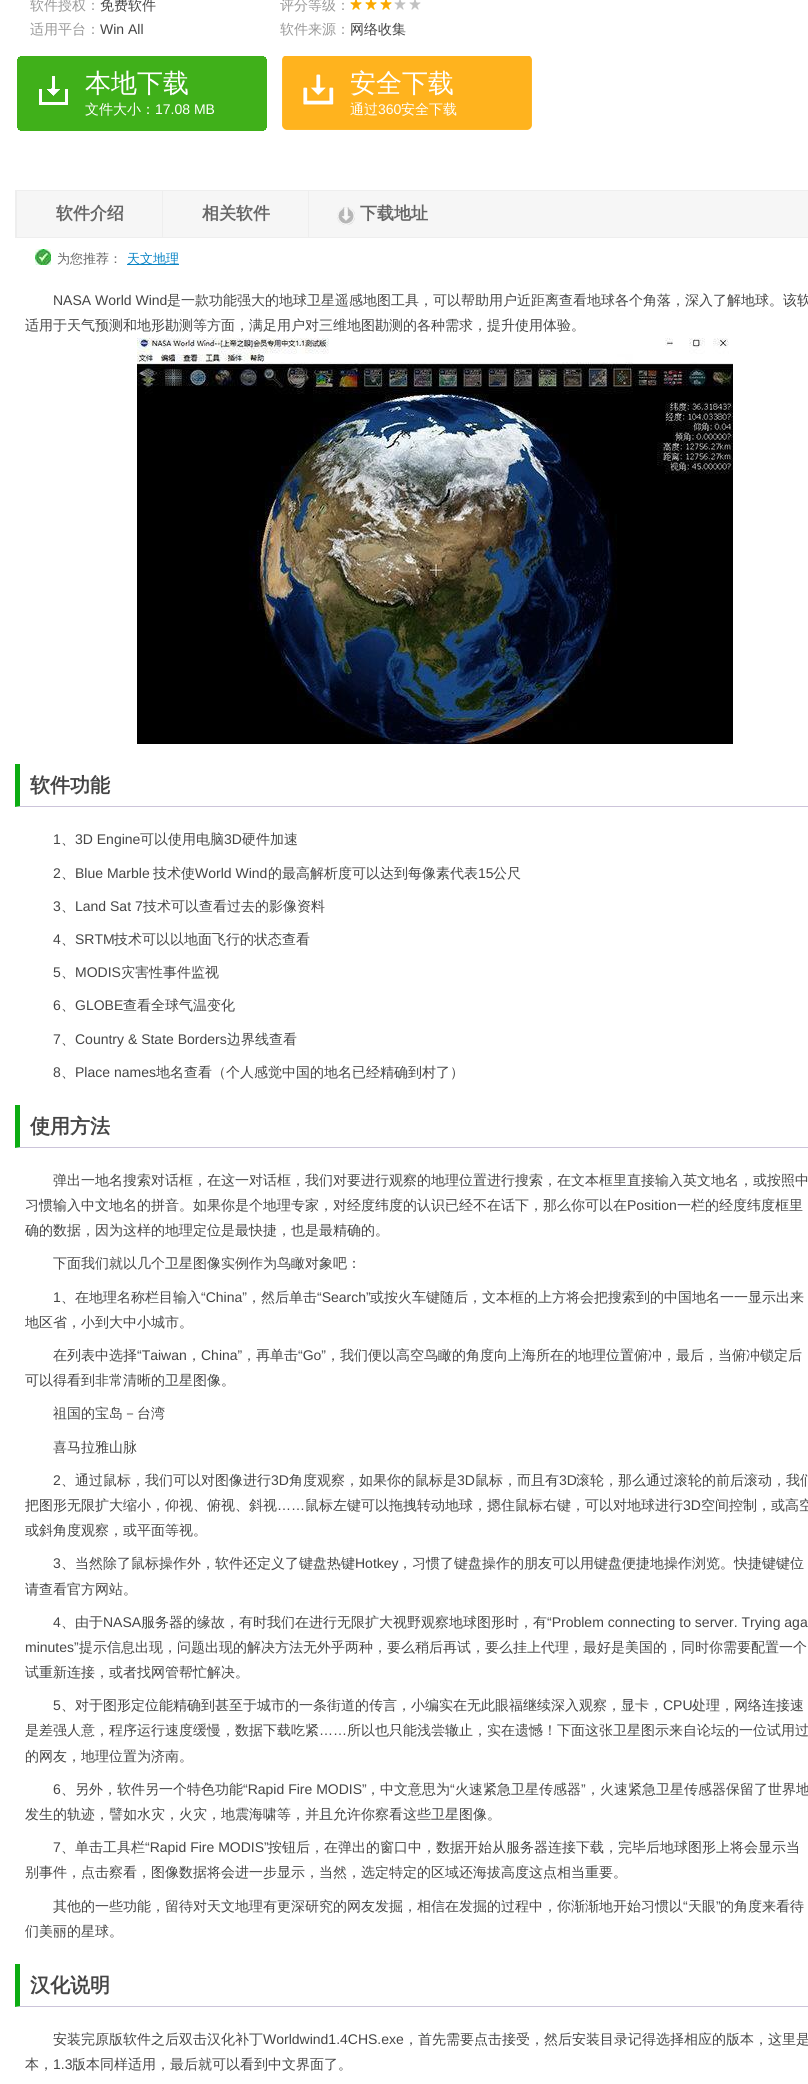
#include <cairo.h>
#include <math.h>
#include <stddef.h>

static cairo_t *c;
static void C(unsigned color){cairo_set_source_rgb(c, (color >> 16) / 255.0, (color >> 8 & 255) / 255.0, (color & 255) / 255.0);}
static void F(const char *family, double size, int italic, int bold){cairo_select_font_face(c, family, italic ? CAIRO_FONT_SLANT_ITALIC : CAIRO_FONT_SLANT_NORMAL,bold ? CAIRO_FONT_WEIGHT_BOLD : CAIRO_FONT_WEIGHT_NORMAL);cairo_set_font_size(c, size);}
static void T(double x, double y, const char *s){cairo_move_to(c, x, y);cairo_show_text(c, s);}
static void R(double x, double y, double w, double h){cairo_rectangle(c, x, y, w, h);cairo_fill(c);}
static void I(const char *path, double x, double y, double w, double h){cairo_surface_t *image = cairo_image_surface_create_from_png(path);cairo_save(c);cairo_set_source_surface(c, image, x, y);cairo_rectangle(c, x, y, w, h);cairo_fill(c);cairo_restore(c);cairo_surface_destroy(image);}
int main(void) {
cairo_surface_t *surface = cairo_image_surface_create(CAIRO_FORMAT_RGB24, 808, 2084);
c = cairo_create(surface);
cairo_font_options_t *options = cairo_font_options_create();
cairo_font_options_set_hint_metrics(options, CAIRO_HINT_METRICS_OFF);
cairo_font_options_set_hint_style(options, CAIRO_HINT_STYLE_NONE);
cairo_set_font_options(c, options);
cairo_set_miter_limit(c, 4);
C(0xffffff);
cairo_paint(c);
F("WenQuanYi Zen Hei Medium",14,0,0);
C(0x999999);
T(30,10,"软件授权：");
C(0x454545);
T(100,10,"免费软件");
C(0x999999);
T(280,10,"评分等级：");
I("1.png",350,0,71,10);
T(30,34,"适用平台：");
F("Liberation Sans",14,0,0);
C(0x454545);
T(100,34,"Win All");
F("WenQuanYi Zen Hei Medium",14,0,0);
C(0x999999);
T(280,34,"软件来源：");
C(0x454545);
T(350,34,"网络收集");
I("2.png",17,56,250,75);
F("WenQuanYi Zen Hei Medium",26,0,0);
C(0xffffff);
T(85,92,"本地下载");
F("WenQuanYi Zen Hei Medium",14,0,0);
T(85,114,"文件大小：");
F("Liberation Sans",14,0,0);
T(155,114,"17.08 MB");
I("3.png",282,56,250,74);
F("WenQuanYi Zen Hei Medium",26,0,0);
T(350,92,"安全下载");
F("WenQuanYi Zen Hei Medium",14,0,0);
T(350,114,"通过");
F("Liberation Sans",14,0,0);
T(378,114,"360");
F("WenQuanYi Zen Hei Medium",14,0,0);
T(401,114,"安全下载");
C(0xf6f6f6);
R(17,191,791,46);
cairo_rectangle(c,15.5,190.5,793,47);
C(0xeeeeee);
cairo_set_line_width(c,1);
cairo_stroke(c);
R(16,191,1,46);
F("WenQuanYi Zen Hei",17,0,1);
C(0x666666);
T(56,219,"软件介绍");
C(0xeeeeee);
R(162,191,1,46);
C(0x666666);
T(202,219,"相关软件");
I("4.png",337,207,18,18);
C(0xeeeeee);
R(308,191,1,46);
C(0x666666);
T(360,219,"下载地址");
I("5.png",35,249,16,16);
F("WenQuanYi Zen Hei Medium",13,0,0);
T(57,263,"为您推荐：");
C(0x0984c5);
R(127,264,52,1);
T(127,263,"天文地理");
F("Liberation Sans",14,0,0);
C(0x454545);
T(53,305,"NASA World Wind");
F("WenQuanYi Zen Hei Medium",14,0,0);
T(167,305,"是一款功能强大的地球卫星遥感地图工具，可以帮助用户近距离查看地球各个角落，深入了解地球。该软");
T(25,330,"适用于天气预测和地形勘测等方面，满足用户对三维地图勘测的各种需求，提升使用体验。");
I("6.png",137,338,596,406);
C(0xccc4da);
cairo_new_path(c);
cairo_move_to(c,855,807);
cairo_line_to(c,15,807);
cairo_line_to(c,20,806);
cairo_line_to(c,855,806);
cairo_close_path(c);
cairo_fill(c);
C(0x0cad12);
cairo_new_path(c);
cairo_move_to(c,15,807);
cairo_line_to(c,15,764);
cairo_line_to(c,20,764);
cairo_line_to(c,20,806);
cairo_close_path(c);
cairo_fill(c);
F("WenQuanYi Zen Hei",20,0,1);
C(0x454545);
T(30,792,"软件功能");
F("Liberation Sans",14,0,0);
T(53,844,"1");
F("WenQuanYi Zen Hei Medium",14,0,0);
T(61,844,"、");
F("Liberation Sans",14,0,0);
T(75,844,"3D Engine");
F("WenQuanYi Zen Hei Medium",14,0,0);
T(140,844,"可以使用电脑");
F("Liberation Sans",14,0,0);
T(224,844,"3D");
F("WenQuanYi Zen Hei Medium",14,0,0);
T(242,844,"硬件加速");
F("Liberation Sans",14,0,0);
T(53,878,"2");
F("WenQuanYi Zen Hei Medium",14,0,0);
T(61,878,"、");
F("Liberation Sans",14,0,0);
T(75,878,"Blue Marble");
F("WenQuanYi Zen Hei Medium",14,0,0);
T(153,878,"技术使");
F("Liberation Sans",14,0,0);
T(195,878,"World Wind");
F("WenQuanYi Zen Hei Medium",14,0,0);
T(268,878,"的最高解析度可以达到每像素代表");
F("Liberation Sans",14,0,0);
T(478,878,"15");
F("WenQuanYi Zen Hei Medium",14,0,0);
T(493,878,"公尺");
F("Liberation Sans",14,0,0);
T(53,911,"3");
F("WenQuanYi Zen Hei Medium",14,0,0);
T(61,911,"、");
F("Liberation Sans",14,0,0);
T(75,911,"Land Sat 7");
F("WenQuanYi Zen Hei Medium",14,0,0);
T(143,911,"技术可以查看过去的影像资料");
F("Liberation Sans",14,0,0);
T(53,944,"4");
F("WenQuanYi Zen Hei Medium",14,0,0);
T(61,944,"、");
F("Liberation Sans",14,0,0);
T(75,944,"SRTM");
F("WenQuanYi Zen Hei Medium",14,0,0);
T(114,944,"技术可以以地面飞行的状态查看");
F("Liberation Sans",14,0,0);
T(53,977,"5");
F("WenQuanYi Zen Hei Medium",14,0,0);
T(61,977,"、");
F("Liberation Sans",14,0,0);
T(75,977,"MODIS");
F("WenQuanYi Zen Hei Medium",14,0,0);
T(121,977,"灾害性事件监视");
F("Liberation Sans",14,0,0);
T(53,1010,"6");
F("WenQuanYi Zen Hei Medium",14,0,0);
T(61,1010,"、");
F("Liberation Sans",14,0,0);
T(75,1010,"GLOBE");
F("WenQuanYi Zen Hei Medium",14,0,0);
T(123,1010,"查看全球气温变化");
F("Liberation Sans",14,0,0);
T(53,1044,"7");
F("WenQuanYi Zen Hei Medium",14,0,0);
T(61,1044,"、");
F("Liberation Sans",14,0,0);
T(75,1044,"Country & State Borders");
F("WenQuanYi Zen Hei Medium",14,0,0);
T(227,1044,"边界线查看");
F("Liberation Sans",14,0,0);
T(53,1077,"8");
F("WenQuanYi Zen Hei Medium",14,0,0);
T(61,1077,"、");
F("Liberation Sans",14,0,0);
T(75,1077,"Place names");
F("WenQuanYi Zen Hei Medium",14,0,0);
T(156,1077,"地名查看（个人感觉中国的地名已经精确到村了）");
C(0xccc4da);
cairo_new_path(c);
cairo_move_to(c,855,1148);
cairo_line_to(c,15,1148);
cairo_line_to(c,20,1147);
cairo_line_to(c,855,1147);
cairo_close_path(c);
cairo_fill(c);
C(0x0cad12);
cairo_new_path(c);
cairo_move_to(c,15,1148);
cairo_line_to(c,15,1105);
cairo_line_to(c,20,1105);
cairo_line_to(c,20,1147);
cairo_close_path(c);
cairo_fill(c);
F("WenQuanYi Zen Hei",20,0,1);
C(0x454545);
T(30,1133,"使用方法");
F("WenQuanYi Zen Hei Medium",14,0,0);
T(53,1185,"弹出一地名搜索对话框，在这一对话框，我们对要进行观察的地理位置进行搜索，在文本框里直接输入英文地名，或按照中");
T(25,1210,"习惯输入中文地名的拼音。如果你是个地理专家，对经度纬度的认识已经不在话下，那么你可以在");
F("Liberation Sans",14,0,0);
T(627,1210,"Position");
F("WenQuanYi Zen Hei Medium",14,0,0);
T(677,1210,"一栏的经度纬度框里");
T(25,1235,"确的数据，因为这样的地理定位是最快捷，也是最精确的。");
T(53,1268,"下面我们就以几个卫星图像实例作为鸟瞰对象吧：");
F("Liberation Sans",14,0,0);
T(53,1302,"1");
F("WenQuanYi Zen Hei Medium",14,0,0);
T(61,1302,"、在地理名称栏目输入");
F("Liberation Sans",14,0,0);
T(201,1302,"“China”");
F("WenQuanYi Zen Hei Medium",14,0,0);
T(247,1302,"，然后单击");
F("Liberation Sans",14,0,0);
T(317,1302,"“Search”");
F("WenQuanYi Zen Hei Medium",14,0,0);
T(370,1302,"或按火车键随后，文本框的上方将会把搜索到的中国地名一一显示出来");
T(25,1327,"地区省，小到大中小城市。");
T(53,1360,"在列表中选择");
F("Liberation Sans",14,0,0);
T(137,1360,"“Taiwan");
F("WenQuanYi Zen Hei Medium",14,0,0);
T(187,1360,"，");
F("Liberation Sans",14,0,0);
T(201,1360,"China”");
F("WenQuanYi Zen Hei Medium",14,0,0);
T(242,1360,"，再单击");
F("Liberation Sans",14,0,0);
T(298,1360,"“Go”");
F("WenQuanYi Zen Hei Medium",14,0,0);
T(326,1360,"，我们便以高空鸟瞰的角度向上海所在的地理位置俯冲，最后，当俯冲锁定后");
T(25,1385,"可以得看到非常清晰的卫星图像。");
T(53,1418,"祖国的宝岛－台湾");
T(53,1452,"喜马拉雅山脉");
F("Liberation Sans",14,0,0);
T(53,1485,"2");
F("WenQuanYi Zen Hei Medium",14,0,0);
T(61,1485,"、通过鼠标，我们可以对图像进行");
F("Liberation Sans",14,0,0);
T(271,1485,"3D");
F("WenQuanYi Zen Hei Medium",14,0,0);
T(289,1485,"角度观察，如果你的鼠标是");
F("Liberation Sans",14,0,0);
T(457,1485,"3D");
F("WenQuanYi Zen Hei Medium",14,0,0);
T(475,1485,"鼠标，而且有");
F("Liberation Sans",14,0,0);
T(559,1485,"3D");
F("WenQuanYi Zen Hei Medium",14,0,0);
T(576,1485,"滚轮，那么通过滚轮的前后滚动，我们");
T(25,1510,"把图形无限扩大缩小，仰视、俯视、斜视");
F("Liberation Sans",14,0,0);
T(277,1510,"……");
F("WenQuanYi Zen Hei Medium",14,0,0);
T(305,1510,"鼠标左键可以拖拽转动地球，摁住鼠标右键，可以对地球进行");
F("Liberation Sans",14,0,0);
T(683,1510,"3D");
F("WenQuanYi Zen Hei Medium",14,0,0);
T(701,1510,"空间控制，或高空");
T(25,1535,"或斜角度观察，或平面等视。");
F("Liberation Sans",14,0,0);
T(53,1568,"3");
F("WenQuanYi Zen Hei Medium",14,0,0);
T(61,1568,"、当然除了鼠标操作外，软件还定义了键盘热键");
F("Liberation Sans",14,0,0);
T(355,1568,"Hotkey");
F("WenQuanYi Zen Hei Medium",14,0,0);
T(398,1568,"，习惯了键盘操作的朋友可以用键盘便捷地操作浏览。快捷键键位");
T(25,1594,"请查看官方网站。");
F("Liberation Sans",14,0,0);
T(53,1627,"4");
F("WenQuanYi Zen Hei Medium",14,0,0);
T(61,1627,"、由于");
F("Liberation Sans",14,0,0);
T(103,1627,"NASA");
F("WenQuanYi Zen Hei Medium",14,0,0);
T(141,1627,"服务器的缘故，有时我们在进行无限扩大视野观察地球图形时，有");
F("Liberation Sans",14,0,0);
T(547,1627,"“Problem connecting to server. Trying aga");
T(25,1652,"minutes”");
F("WenQuanYi Zen Hei Medium",14,0,0);
T(79,1652,"提示信息出现，问题出现的解决方法无外乎两种，要么稍后再试，要么挂上代理，最好是美国的，同时你需要配置一个");
T(25,1677,"试重新连接，或者找网管帮忙解决。");
F("Liberation Sans",14,0,0);
T(53,1710,"5");
F("WenQuanYi Zen Hei Medium",14,0,0);
T(61,1710,"、对于图形定位能精确到甚至于城市的一条街道的传言，小编实在无此眼福继续深入观察，显卡，");
F("Liberation Sans",14,0,0);
T(663,1710,"CPU");
F("WenQuanYi Zen Hei Medium",14,0,0);
T(692,1710,"处理，网络连接速");
T(25,1735,"是差强人意，程序运行速度缓慢，数据下载吃紧");
F("Liberation Sans",14,0,0);
T(319,1735,"……");
F("WenQuanYi Zen Hei Medium",14,0,0);
T(347,1735,"所以也只能浅尝辙止，实在遗憾！下面这张卫星图示来自论坛的一位试用过");
T(25,1761,"的网友，地理位置为济南。");
F("Liberation Sans",14,0,0);
T(53,1794,"6");
F("WenQuanYi Zen Hei Medium",14,0,0);
T(61,1794,"、另外，软件另一个特色功能");
F("Liberation Sans",14,0,0);
T(243,1794,"“Rapid Fire MODIS”");
F("WenQuanYi Zen Hei Medium",14,0,0);
T(366,1794,"，中文意思为");
F("Liberation Sans",14,0,0);
T(450,1794,"“");
F("WenQuanYi Zen Hei Medium",14,0,0);
T(455,1794,"火速紧急卫星传感器");
F("Liberation Sans",14,0,0);
T(581,1794,"”");
F("WenQuanYi Zen Hei Medium",14,0,0);
T(586,1794,"，火速紧急卫星传感器保留了世界地");
T(25,1819,"发生的轨迹，譬如水灾，火灾，地震海啸等，并且允许你察看这些卫星图像。");
F("Liberation Sans",14,0,0);
T(53,1852,"7");
F("WenQuanYi Zen Hei Medium",14,0,0);
T(61,1852,"、单击工具栏");
F("Liberation Sans",14,0,0);
T(145,1852,"“Rapid Fire MODIS”");
F("WenQuanYi Zen Hei Medium",14,0,0);
T(268,1852,"按钮后，在弹出的窗口中，数据开始从服务器连接下载，完毕后地球图形上将会显示当");
T(25,1877,"别事件，点击察看，图像数据将会进一步显示，当然，选定特定的区域还海拔高度这点相当重要。");
T(53,1911,"其他的一些功能，留待对天文地理有更深研究的网友发掘，相信在发掘的过程中，你渐渐地开始习惯以");
F("Liberation Sans",14,0,0);
T(683,1911,"“");
F("WenQuanYi Zen Hei Medium",14,0,0);
T(688,1911,"天眼");
F("Liberation Sans",14,0,0);
T(716,1911,"”");
F("WenQuanYi Zen Hei Medium",14,0,0);
T(720,1911,"的角度来看待");
T(25,1936,"们美丽的星球。");
C(0xccc4da);
cairo_new_path(c);
cairo_move_to(c,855,2007);
cairo_line_to(c,15,2007);
cairo_line_to(c,20,2006);
cairo_line_to(c,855,2006);
cairo_close_path(c);
cairo_fill(c);
C(0x0cad12);
cairo_new_path(c);
cairo_move_to(c,15,2007);
cairo_line_to(c,15,1964);
cairo_line_to(c,20,1964);
cairo_line_to(c,20,2006);
cairo_close_path(c);
cairo_fill(c);
F("WenQuanYi Zen Hei",20,0,1);
C(0x454545);
T(30,1992,"汉化说明");
F("WenQuanYi Zen Hei Medium",14,0,0);
T(53,2044,"安装完原版软件之后双击汉化补丁");
F("Liberation Sans",14,0,0);
T(263,2044,"Worldwind1.4CHS.exe");
F("WenQuanYi Zen Hei Medium",14,0,0);
T(404,2044,"，首先需要点击接受，然后安装目录记得选择相应的版本，这里是");
T(25,2069,"本，");
F("Liberation Sans",14,0,0);
T(53,2069,"1.3");
F("WenQuanYi Zen Hei Medium",14,0,0);
T(72,2069,"版本同样适用，最后就可以看到中文界面了。");
cairo_surface_write_to_png(surface, "o.png");
cairo_font_options_destroy(options);
cairo_destroy(c);
cairo_surface_destroy(surface);
return 0;
}
